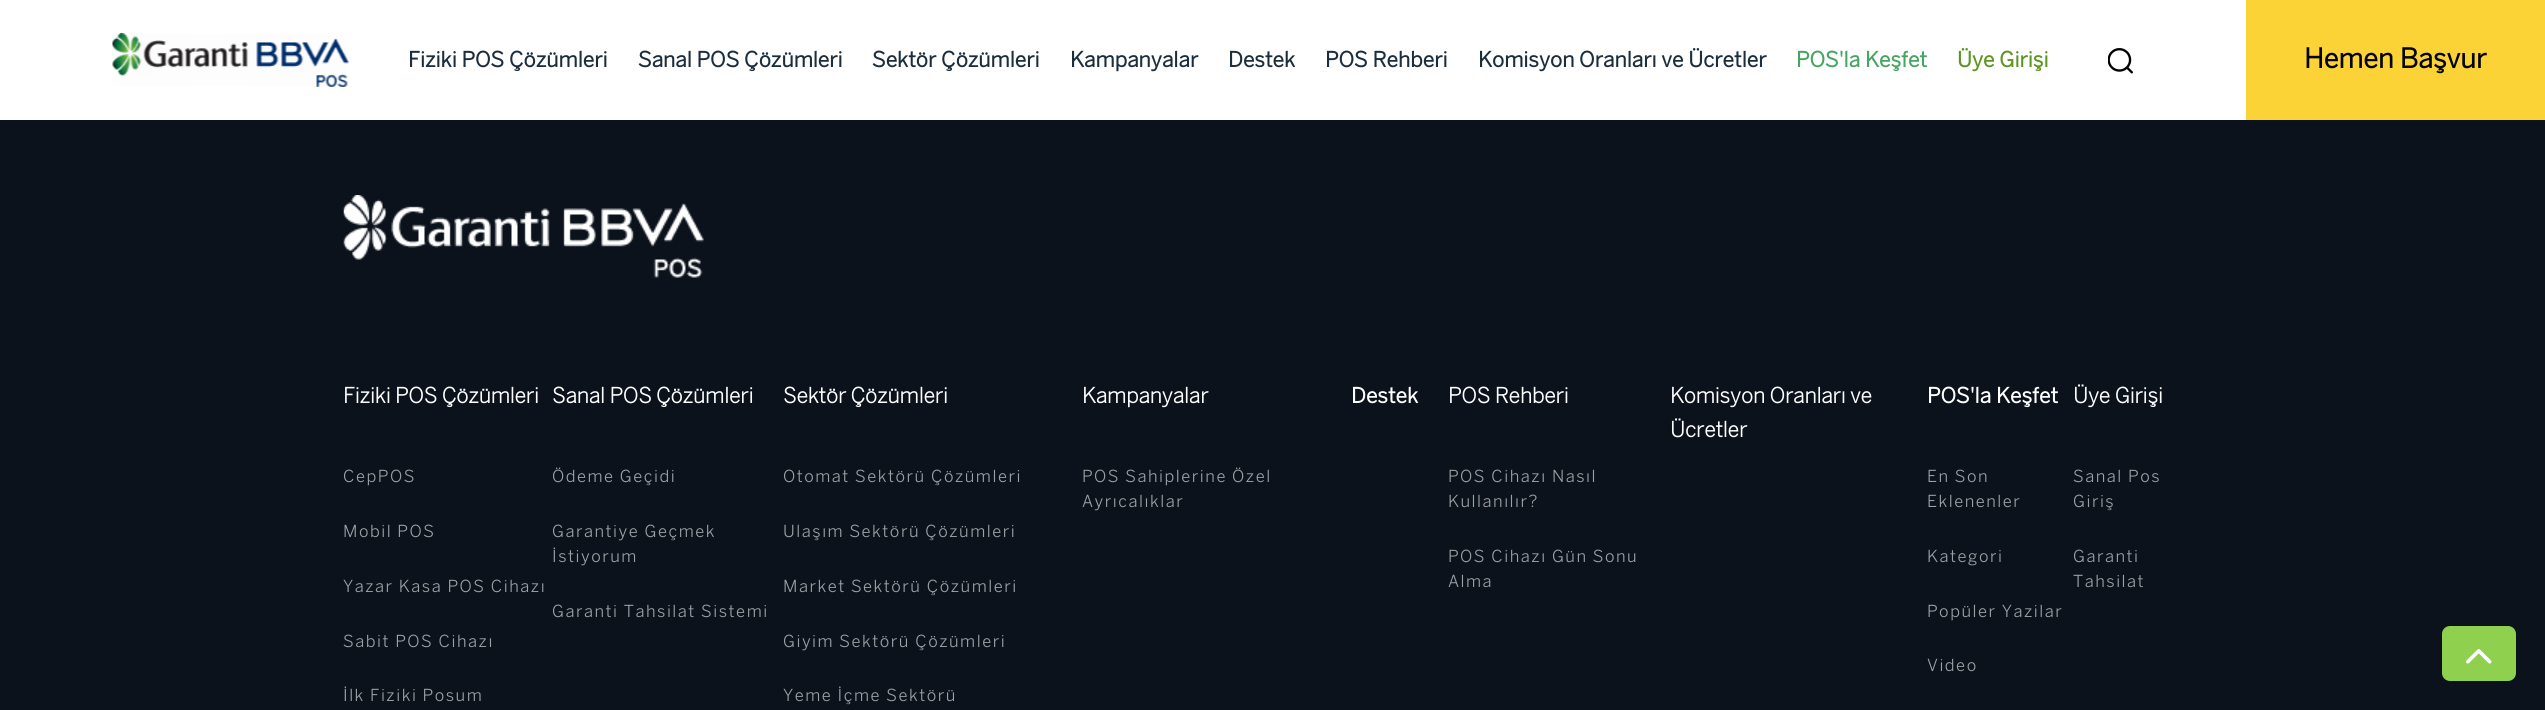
#include <cairo.h>
#include <math.h>
#include <stddef.h>

static cairo_t *c;
static void C(unsigned color){cairo_set_source_rgb(c, (color >> 16) / 255.0, (color >> 8 & 255) / 255.0, (color & 255) / 255.0);}
static void F(const char *family, double size, int italic, int bold){cairo_select_font_face(c, family, italic ? CAIRO_FONT_SLANT_ITALIC : CAIRO_FONT_SLANT_NORMAL,bold ? CAIRO_FONT_WEIGHT_BOLD : CAIRO_FONT_WEIGHT_NORMAL);cairo_set_font_size(c, size);}
static void T(double x, double y, const char *s){cairo_move_to(c, x, y);cairo_show_text(c, s);}
static void L(double x, double y, const char *s, double letter, double word){cairo_move_to(c, x, y);while (*s) {char ch[5] = {0};int n = 0;do ch[n++] = *s++; while ((*s & 0xC0) == 0x80);cairo_show_text(c, ch);cairo_rel_move_to(c, letter + word * (*ch == ' '), 0);}}
static void R(double x, double y, double w, double h){cairo_rectangle(c, x, y, w, h);cairo_fill(c);}
static void Q(double x, double y, double w, double h, double r){cairo_new_sub_path(c);cairo_arc(c, x + w - r, y + h - r, r, 0, M_PI / 2);cairo_arc(c, x + r, y + h - r, r, M_PI / 2, M_PI);cairo_arc(c, x + r, y + r, r, M_PI, 1.5 * M_PI);cairo_arc(c, x + w - r, y + r, r, 1.5 * M_PI, 2 * M_PI);cairo_close_path(c);}
static void I(const char *path, double x, double y, double w, double h){cairo_surface_t *image = cairo_image_surface_create_from_png(path);cairo_save(c);cairo_set_source_surface(c, image, x, y);cairo_rectangle(c, x, y, w, h);cairo_fill(c);cairo_restore(c);cairo_surface_destroy(image);}
int main(void) {
cairo_surface_t *surface = cairo_image_surface_create(CAIRO_FORMAT_RGB24, 2545, 710);
c = cairo_create(surface);
cairo_font_options_t *options = cairo_font_options_create();
cairo_font_options_set_hint_metrics(options, CAIRO_HINT_METRICS_OFF);
cairo_font_options_set_hint_style(options, CAIRO_HINT_STYLE_NONE);
cairo_set_font_options(c, options);
cairo_set_miter_limit(c, 4);
C(0xffffff);
cairo_paint(c);
I("1.png",112,33,237,54);
F("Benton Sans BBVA",21,0,1);
C(0x1c2e3d);
T(408,67,"Fiziki POS Çözümleri");
T(638,67,"Sanal POS Çözümleri");
T(872,67,"Sektör Çözümleri");
T(1070,67,"Kampanyalar");
T(1228,67,"Destek");
T(1325,67,"POS Rehberi");
T(1478,67,"Komisyon Oranları ve Ücretler");
C(0x47a561);
T(1796,67,"POS'la Keşfet");
C(0x5b9522);
T(1957,67,"Üye Girişi");
I("2.png",2108,48,25,26);
C(0xfbd336);
R(2246,0,299,120);
F("Benton Sans BBVA",27,0,1);
C(0x040404);
T(2304,68,"Hemen Başvur");
C(0x0b121c);
R(0,120,2545,590);
I("3.png",343,195,361,83);
F("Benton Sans",21,0,1);
C(0xffffff);
T(343,403,"Fiziki POS Çözümleri");
cairo_save(c);
cairo_rectangle(c,344,444,208,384);
cairo_clip(c);
F("Benton Sans BBVA",16.5,0,0);
C(0x9da0a4);
L(343,482,"CepPOS",1.5,0);
cairo_restore(c);
F("Benton Sans BBVA",16.5,0,0);
C(0x9da0a4);
L(343,537,"Mobil POS",1.5,0);
L(343,592,"Yazar Kasa POS Cihazı",1.5,0);
L(343,647,"Sabit POS Cihazı",1.5,0);
L(343,701,"İlk Fiziki Posum",1.5,0);
F("Benton Sans",21,0,1);
C(0xffffff);
T(552,403,"Sanal POS Çözümleri");
F("Benton Sans BBVA",16.5,0,0);
C(0x9da0a4);
L(552,482,"Ödeme Geçidi",1.5,0);
L(552,537,"Garantiye Geçmek",1.5,0);
L(552,562,"İstiyorum",1.5,0);
L(552,617,"Garanti Tahsilat Sistemi",1.5,0);
F("Benton Sans",21,0,1);
C(0xffffff);
T(783,403,"Sektör Çözümleri");
F("Benton Sans BBVA",16.5,0,0);
C(0x9da0a4);
L(783,482,"Otomat Sektörü Çözümleri",1.5,0);
L(783,537,"Ulaşım Sektörü Çözümleri",1.5,0);
L(783,592,"Market Sektörü Çözümleri",1.5,0);
L(783,647,"Giyim Sektörü Çözümleri",1.5,0);
L(783,701,"Yeme İçme Sektörü",1.5,0);
F("Benton Sans",21,0,1);
C(0xffffff);
T(1082,403,"Kampanyalar");
F("Benton Sans BBVA",16.5,0,0);
C(0x9da0a4);
L(1082,482,"POS Sahiplerine Özel",1.5,0);
L(1082,507,"Ayrıcalıklar",1.5,0);
F("Benton Sans BBVA",21,0,1);
C(0xffffff);
T(1351,403,"Destek");
F("Benton Sans",21,0,1);
T(1448,403,"POS Rehberi");
F("Benton Sans BBVA",16.5,0,0);
C(0x9da0a4);
L(1448,482,"POS Cihazı Nasıl",1.5,0);
L(1448,507,"Kullanılır?",1.5,0);
L(1448,562,"POS Cihazı Gün Sonu",1.5,0);
L(1448,587,"Alma",1.5,0);
F("Benton Sans",21,0,1);
C(0xffffff);
T(1670,403,"Komisyon Oranları ve");
T(1670,437,"Ücretler");
F("Benton Sans BBVA",21,0,1);
T(1927,403,"POS'la Keşfet");
F("Benton Sans BBVA",16.5,0,0);
C(0x9da0a4);
L(1927,482,"En Son",1.5,0);
L(1927,507,"Eklenenler",1.5,0);
L(1927,562,"Kategori",1.5,0);
L(1927,617,"Popüler Yazilar",1.5,0);
L(1927,671,"Video",1.5,0);
F("Benton Sans",21,0,1);
C(0xffffff);
T(2073,403,"Üye Girişi");
F("Benton Sans BBVA",16.5,0,0);
C(0x9da0a4);
L(2073,482,"Sanal Pos",1.5,0);
L(2073,507,"Giriş",1.5,0);
L(2073,562,"Garanti",1.5,0);
L(2073,587,"Tahsilat",1.5,0);
C(0x8fd14f);
Q(2442,626,74,55,8);
cairo_fill(c);
I("4.png",2466,649,26,15);
cairo_surface_write_to_png(surface, "o.png");
cairo_font_options_destroy(options);
cairo_destroy(c);
cairo_surface_destroy(surface);
return 0;
}
